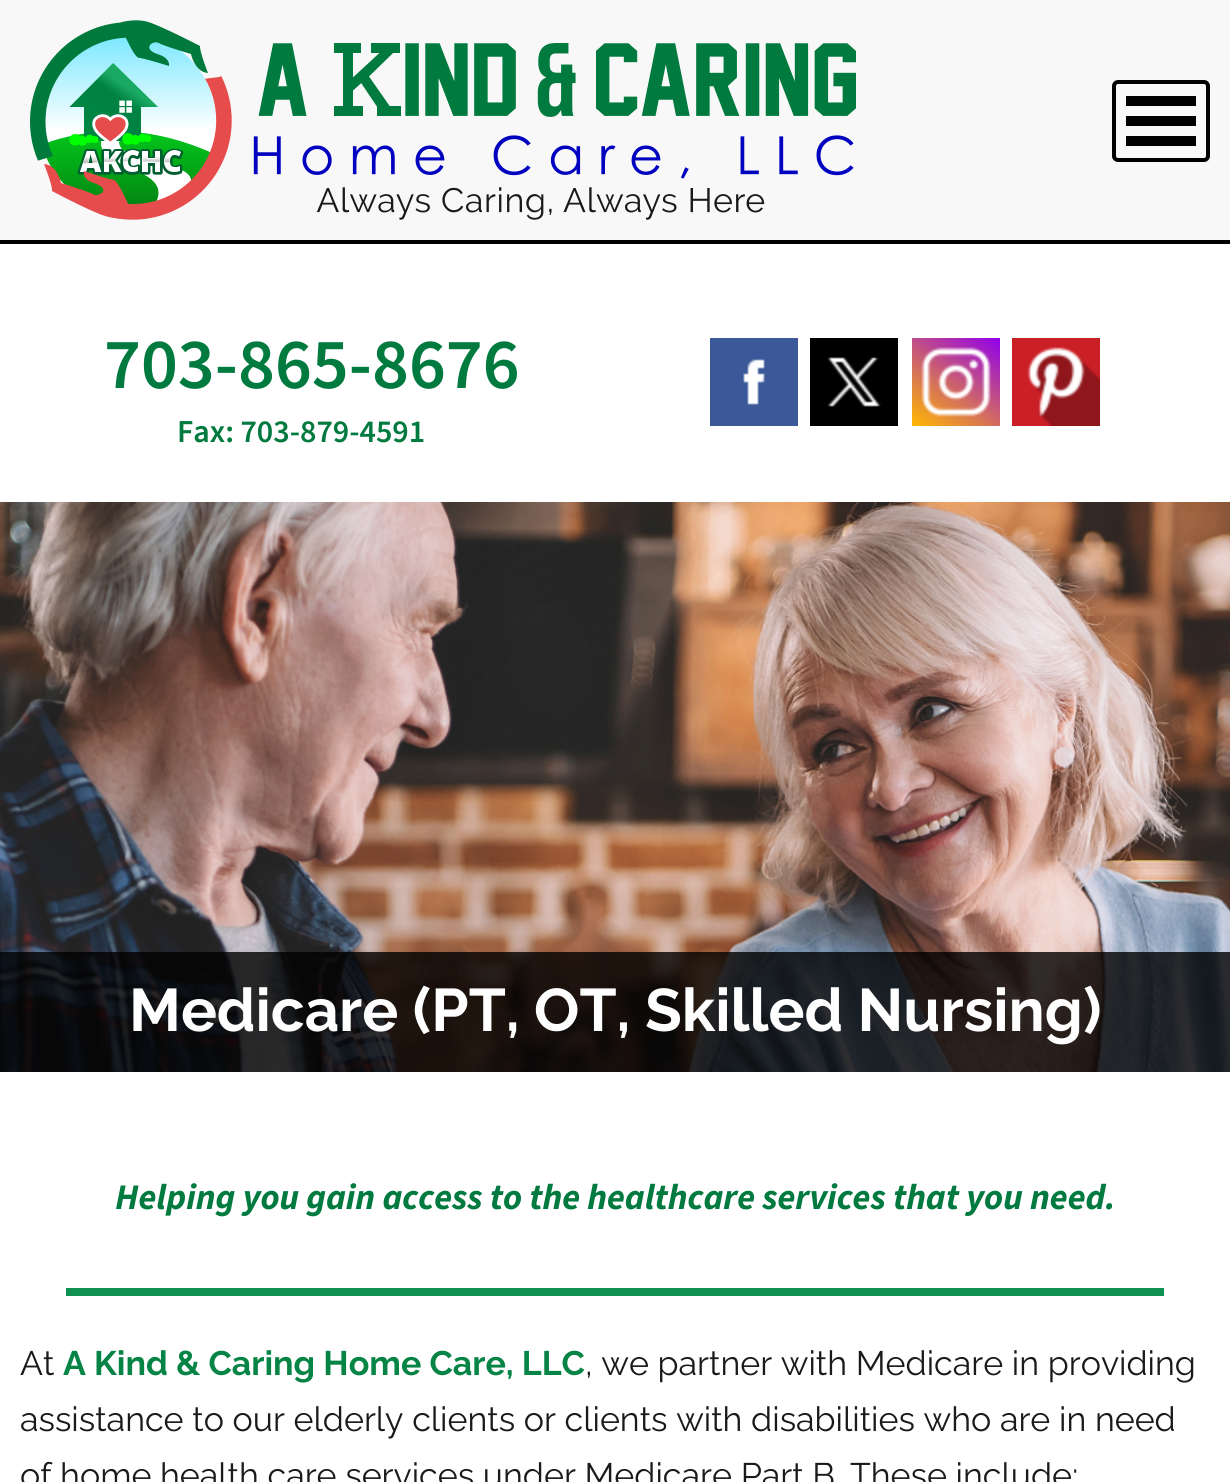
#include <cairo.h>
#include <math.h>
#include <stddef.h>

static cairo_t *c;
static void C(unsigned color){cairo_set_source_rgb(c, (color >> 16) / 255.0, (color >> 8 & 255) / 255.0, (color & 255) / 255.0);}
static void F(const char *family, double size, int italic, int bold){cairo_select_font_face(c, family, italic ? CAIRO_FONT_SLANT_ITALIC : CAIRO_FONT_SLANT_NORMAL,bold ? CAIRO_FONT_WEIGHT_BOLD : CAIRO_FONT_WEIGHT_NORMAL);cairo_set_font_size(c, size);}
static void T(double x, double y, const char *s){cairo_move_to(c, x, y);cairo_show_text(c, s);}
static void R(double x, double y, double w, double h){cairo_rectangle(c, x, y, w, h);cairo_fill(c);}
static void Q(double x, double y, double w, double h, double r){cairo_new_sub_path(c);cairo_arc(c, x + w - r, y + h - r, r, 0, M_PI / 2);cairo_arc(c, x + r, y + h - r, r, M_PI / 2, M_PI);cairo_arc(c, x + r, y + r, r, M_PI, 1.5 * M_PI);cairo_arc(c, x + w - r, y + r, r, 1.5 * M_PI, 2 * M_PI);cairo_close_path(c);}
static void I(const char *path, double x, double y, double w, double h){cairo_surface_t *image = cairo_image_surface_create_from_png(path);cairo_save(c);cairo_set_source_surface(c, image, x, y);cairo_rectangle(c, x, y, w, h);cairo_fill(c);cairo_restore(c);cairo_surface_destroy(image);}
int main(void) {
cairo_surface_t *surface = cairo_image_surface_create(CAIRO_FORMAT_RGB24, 1230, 1482);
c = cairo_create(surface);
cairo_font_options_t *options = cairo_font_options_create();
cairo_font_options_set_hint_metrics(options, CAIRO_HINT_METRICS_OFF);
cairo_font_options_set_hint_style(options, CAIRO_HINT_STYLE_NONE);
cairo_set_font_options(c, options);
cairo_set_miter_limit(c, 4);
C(0xffffff);
cairo_paint(c);
C(0xf8f8f8);
R(0,0,1230,240);
C(0x000000);
R(0,240,1230,4);
I("1.png",30,20,826,200);
Q(1114,82,94,78,4);
cairo_set_line_width(c,4);
cairo_stroke(c);
R(1126,116,70,10);
R(1126,96,70,10);
R(1126,136,70,10);
F("Source Sans 3 SemiBold",72,0,0);
C(0x007a3e);
T(104,388,"703-865-8676");
F("Source Sans 3 SemiBold",32,0,0);
T(177,442,"Fax: 703-879-4591");
I("2.png",710,338,88,88);
I("3.png",810,338,88,88);
I("4.png",912,338,88,88);
I("5.png",1012,338,88,88);
I("6.png",0,502,1230,570);
cairo_set_source_rgba(c,0,0,0,0.8);
R(0,952,1230,120);
F("Raleway",60,0,1);
C(0xffffff);
T(129,1031,"Medicare (PT, OT, Skilled Nursing)");
C(0x0e9050);
R(66,1288,1098,8);
F("Source Sans 3",36,1,1);
C(0x007a3e);
T(115,1209,"Helping you gain access to the healthcare services that you need.");
F("Raleway",34,0,0);
C(0x1a1a1a);
T(20,1375,"At");
F("Raleway",34,0,1);
C(0x068446);
T(63,1375,"A Kind & Caring Home Care, LLC");
F("Raleway",34,0,0);
C(0x1a1a1a);
T(585,1375,", we partner with Medicare in providing");
T(20,1431,"assistance to our elderly clients or clients with disabilities who are in need");
T(20,1487,"of home health care services under Medicare Part B. These include:");
cairo_surface_write_to_png(surface, "o.png");
cairo_font_options_destroy(options);
cairo_destroy(c);
cairo_surface_destroy(surface);
return 0;
}
